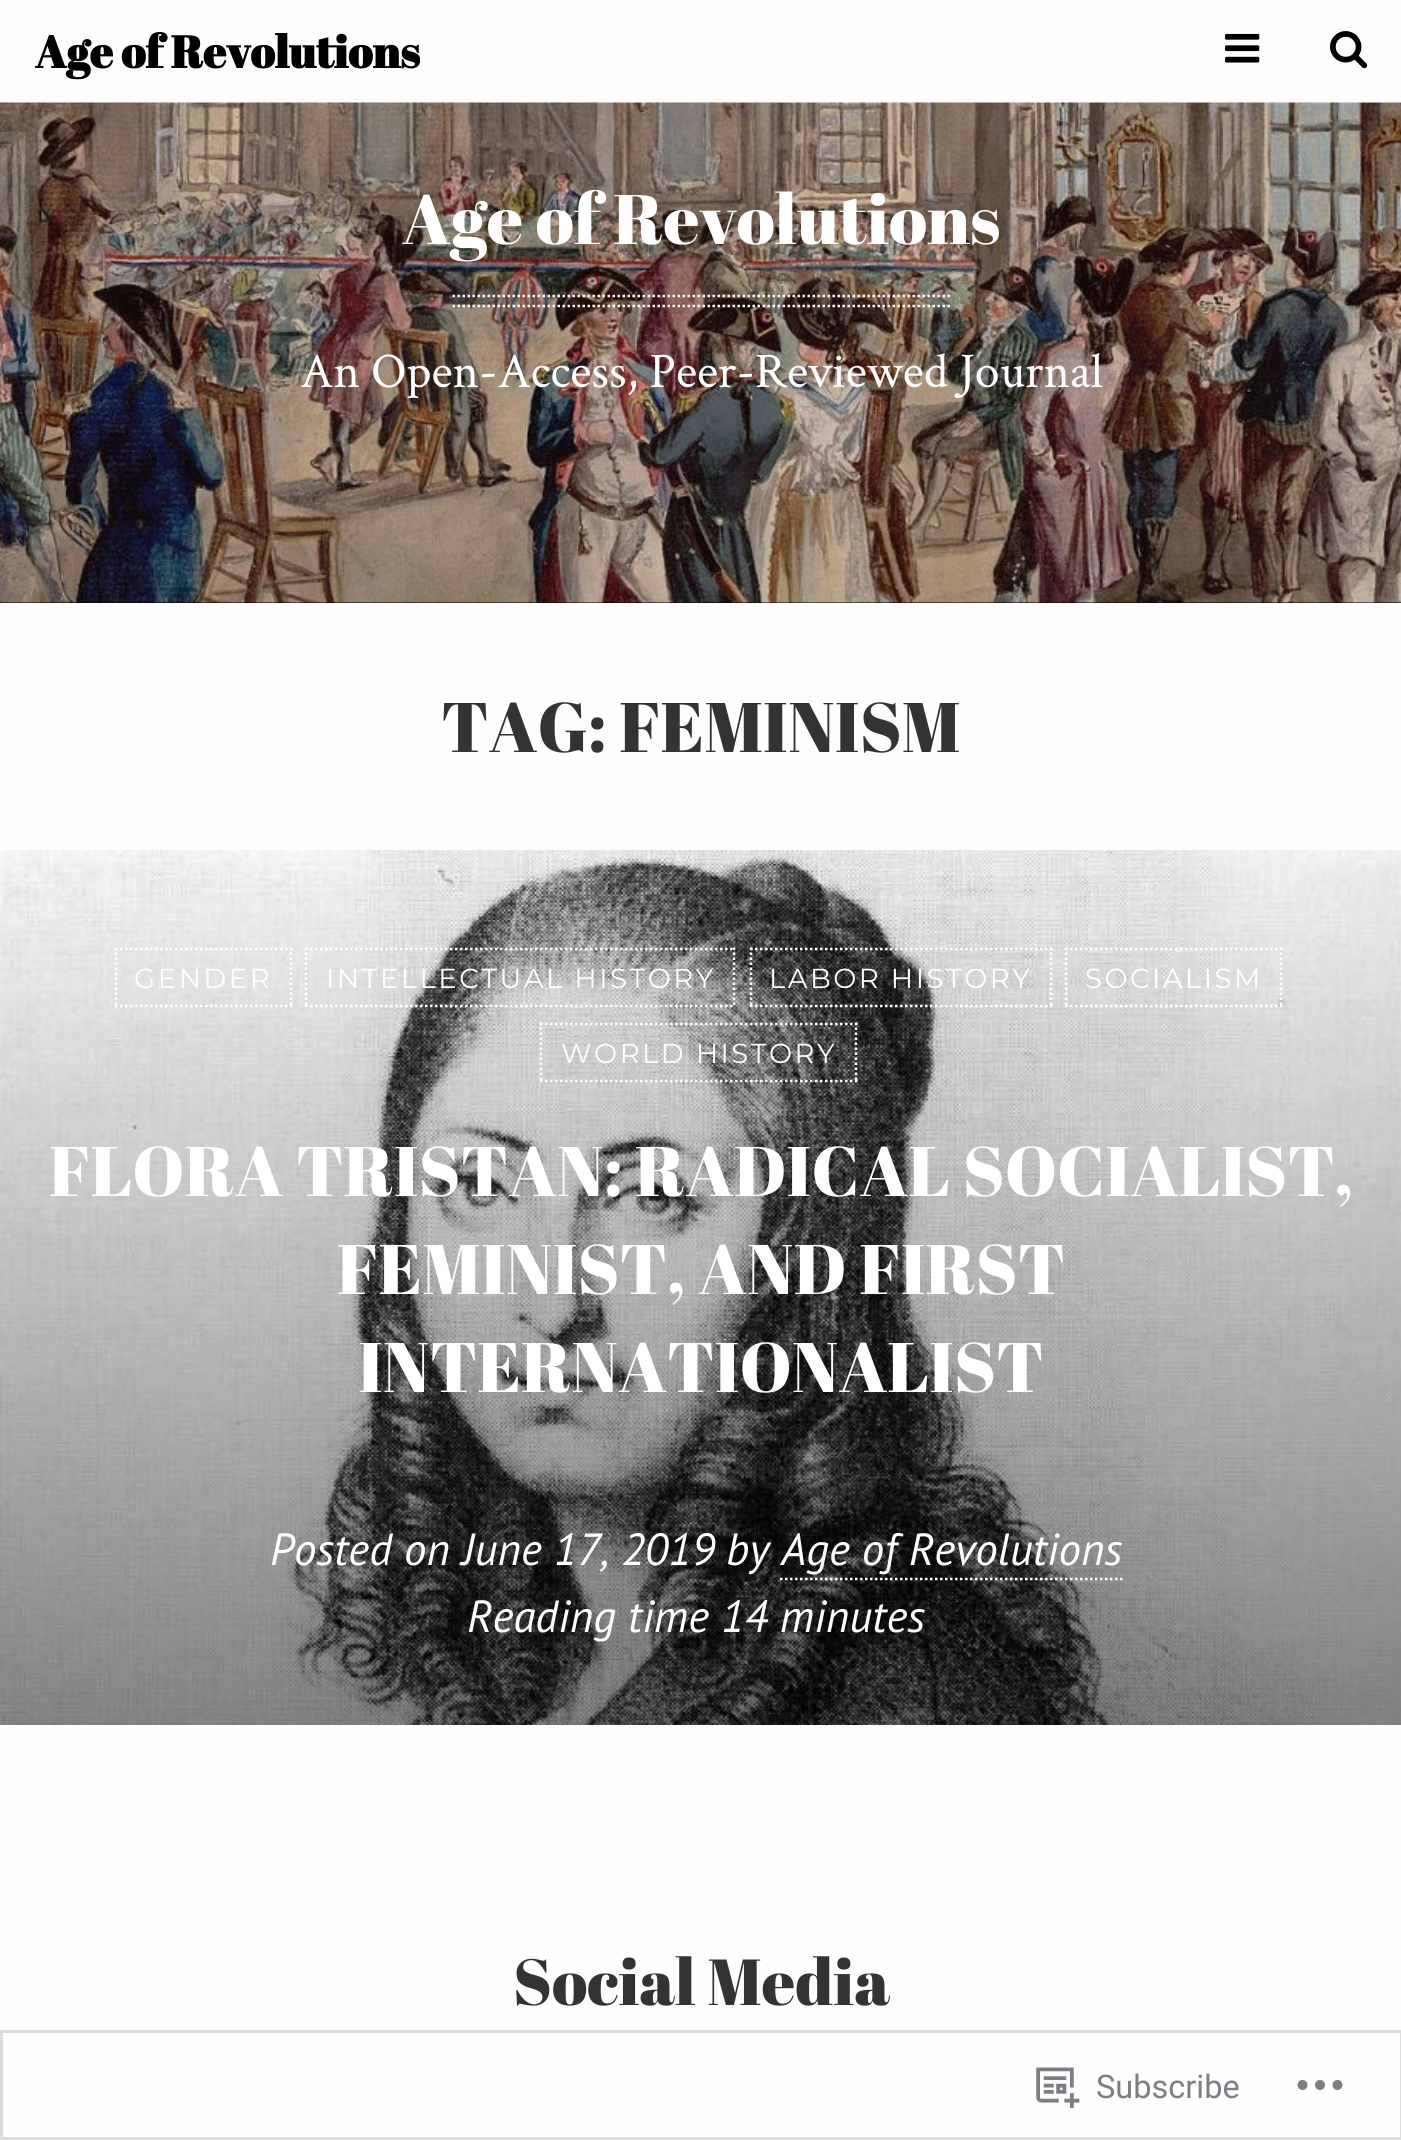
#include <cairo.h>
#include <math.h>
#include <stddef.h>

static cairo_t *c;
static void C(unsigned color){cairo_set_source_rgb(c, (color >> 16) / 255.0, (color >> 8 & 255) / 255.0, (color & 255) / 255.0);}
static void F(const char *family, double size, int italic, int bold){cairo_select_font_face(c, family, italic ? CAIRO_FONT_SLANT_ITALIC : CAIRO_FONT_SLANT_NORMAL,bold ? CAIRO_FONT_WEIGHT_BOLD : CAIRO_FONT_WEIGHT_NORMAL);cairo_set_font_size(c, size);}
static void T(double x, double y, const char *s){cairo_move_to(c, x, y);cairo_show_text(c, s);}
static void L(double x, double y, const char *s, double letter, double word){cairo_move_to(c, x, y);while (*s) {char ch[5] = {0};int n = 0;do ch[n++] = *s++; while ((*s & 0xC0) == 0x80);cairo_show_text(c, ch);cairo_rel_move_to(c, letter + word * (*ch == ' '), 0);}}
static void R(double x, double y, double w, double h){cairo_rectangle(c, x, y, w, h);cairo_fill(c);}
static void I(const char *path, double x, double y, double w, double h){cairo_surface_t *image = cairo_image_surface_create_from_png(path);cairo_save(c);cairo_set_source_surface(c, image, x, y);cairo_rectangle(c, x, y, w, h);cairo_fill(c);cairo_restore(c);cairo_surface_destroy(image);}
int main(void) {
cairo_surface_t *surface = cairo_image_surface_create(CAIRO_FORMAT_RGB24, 1401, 2140);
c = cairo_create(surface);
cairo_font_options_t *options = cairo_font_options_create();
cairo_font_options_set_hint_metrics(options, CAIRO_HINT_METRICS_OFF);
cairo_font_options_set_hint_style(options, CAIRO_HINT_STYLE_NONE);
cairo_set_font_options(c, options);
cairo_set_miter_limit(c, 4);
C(0xfffdfd);
cairo_paint(c);
F("Abril Fatface",45,0,1);
C(0x000000);
T(35,68,"Age of Revolutions");
I("1.png",1225,33,35,30);
I("2.png",1330,31,38,38);
R(0,602,1401,1);
I("3.png",0,102,1401,501);
F("Abril Fatface",70,0,0);
C(0xffffff);
T(402,244,"Age of Revolutions");
cairo_new_path(c);
cairo_move_to(c,452.5,296);
cairo_line_to(c,952.5,296);
C(0xfffdfd);
cairo_set_line_width(c,2.5);
cairo_set_dash(c,(double[]){2.5,2.5},2,0);
cairo_stroke(c);
cairo_new_path(c);
cairo_move_to(c,452.5,306);
cairo_line_to(c,952.5,306);
cairo_stroke(c);
F("Crimson Text",50,0,0);
C(0xffffff);
T(300,387,"An Open-Access, Peer-Reviewed Journal");
F("Abril Fatface",70,0,0);
C(0x333333);
T(441,752,"TAG: FEMINISM");
I("4.png",0,850,1401,875);
F("Montserrat",27.5,0,0);
C(0xffffff);
L(134,988,"GENDER",2.5,0);
cairo_new_path(c);
cairo_move_to(c,115,949);
cairo_line_to(c,292.5,949);
cairo_stroke(c);
cairo_new_path(c);
cairo_move_to(c,291,947.5);
cairo_line_to(c,291,1007.5);
cairo_stroke(c);
cairo_new_path(c);
cairo_move_to(c,115,1006);
cairo_line_to(c,292.5,1006);
cairo_stroke(c);
cairo_new_path(c);
cairo_move_to(c,116,947.5);
cairo_line_to(c,116,1007.5);
cairo_stroke(c);
L(326,988,"INTELLECTUAL HISTORY",2.5,0);
cairo_new_path(c);
cairo_move_to(c,305,949);
cairo_line_to(c,735,949);
cairo_stroke(c);
cairo_new_path(c);
cairo_move_to(c,734,947.5);
cairo_line_to(c,734,1007.5);
cairo_stroke(c);
cairo_new_path(c);
cairo_move_to(c,305,1006);
cairo_line_to(c,735,1006);
cairo_stroke(c);
cairo_new_path(c);
cairo_move_to(c,306,947.5);
cairo_line_to(c,306,1007.5);
cairo_stroke(c);
L(769,988,"LABOR HISTORY",2.5,0);
cairo_new_path(c);
cairo_move_to(c,750,949);
cairo_line_to(c,1052.5,949);
cairo_stroke(c);
cairo_new_path(c);
cairo_move_to(c,1051,947.5);
cairo_line_to(c,1051,1007.5);
cairo_stroke(c);
cairo_new_path(c);
cairo_move_to(c,750,1006);
cairo_line_to(c,1052.5,1006);
cairo_stroke(c);
cairo_new_path(c);
cairo_move_to(c,751,947.5);
cairo_line_to(c,751,1007.5);
cairo_stroke(c);
L(1085,988,"SOCIALISM",2.5,0);
cairo_new_path(c);
cairo_move_to(c,1065,949);
cairo_line_to(c,1282.5,949);
cairo_stroke(c);
cairo_new_path(c);
cairo_move_to(c,1281,947.5);
cairo_line_to(c,1281,1007.5);
cairo_stroke(c);
cairo_new_path(c);
cairo_move_to(c,1065,1006);
cairo_line_to(c,1282.5,1006);
cairo_stroke(c);
cairo_new_path(c);
cairo_move_to(c,1066,947.5);
cairo_line_to(c,1066,1007.5);
cairo_stroke(c);
L(561,1063,"WORLD HISTORY",2.5,0);
cairo_new_path(c);
cairo_move_to(c,540,1024);
cairo_line_to(c,857.5,1024);
cairo_stroke(c);
cairo_new_path(c);
cairo_move_to(c,856,1022.5);
cairo_line_to(c,856,1082.5);
cairo_stroke(c);
cairo_new_path(c);
cairo_move_to(c,540,1081);
cairo_line_to(c,857.5,1081);
cairo_stroke(c);
cairo_new_path(c);
cairo_move_to(c,541,1022.5);
cairo_line_to(c,541,1082.5);
cairo_stroke(c);
F("Abril Fatface",70,0,0);
T(49,1196,"FLORA TRISTAN: RADICAL SOCIALIST,");
T(337,1294,"FEMINIST, AND FIRST");
T(358,1392,"INTERNATIONALIST");
F("PT Sans",45,1,0);
T(270,1565,"Posted on June 17, 2019");
T(726,1565,"by Age of Revolutions");
cairo_new_path(c);
cairo_move_to(c,780,1579);
cairo_line_to(c,1122.5,1579);
C(0xfffdfd);
cairo_stroke(c);
C(0xffffff);
T(467,1632,"Reading time 14 minutes");
F("Abril Fatface",65,0,0);
C(0x333333);
T(513,2005,"Social Media");
cairo_rectangle(c,1.5,2031.5,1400,107);
C(0xdddddf);
cairo_set_line_width(c,3);
cairo_set_dash(c,NULL,0,0);
cairo_stroke(c);
I("5.png",1036,2067,44,42);
F("Roboto",32.5,0,0);
C(0x7b7f84);
T(1096,2098,"Subscribe");
I("6.png",1297,2080,46,10);
cairo_surface_write_to_png(surface, "o.png");
cairo_font_options_destroy(options);
cairo_destroy(c);
cairo_surface_destroy(surface);
return 0;
}
